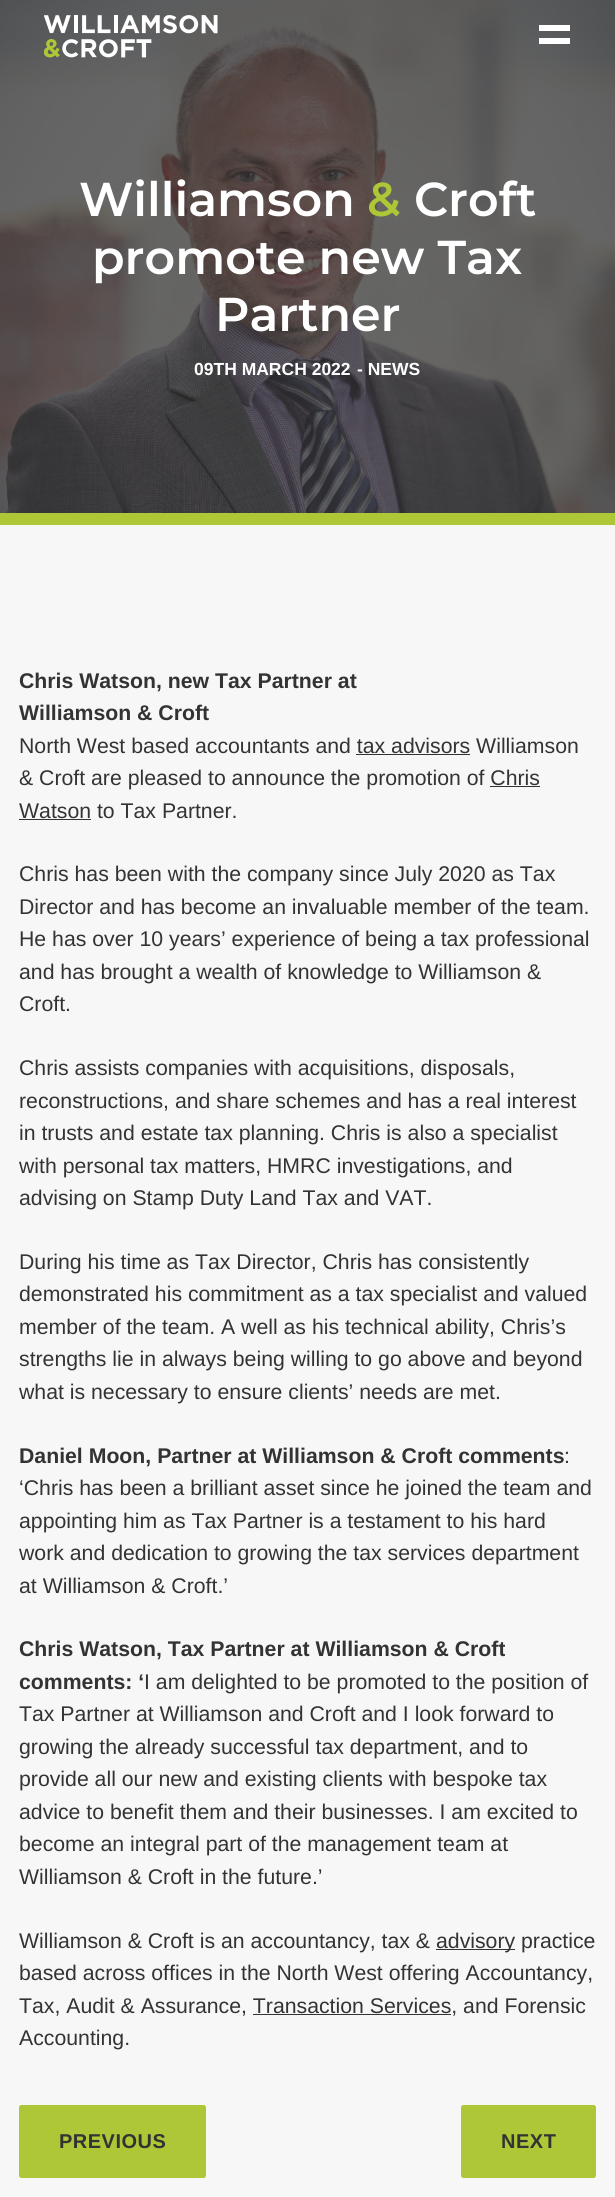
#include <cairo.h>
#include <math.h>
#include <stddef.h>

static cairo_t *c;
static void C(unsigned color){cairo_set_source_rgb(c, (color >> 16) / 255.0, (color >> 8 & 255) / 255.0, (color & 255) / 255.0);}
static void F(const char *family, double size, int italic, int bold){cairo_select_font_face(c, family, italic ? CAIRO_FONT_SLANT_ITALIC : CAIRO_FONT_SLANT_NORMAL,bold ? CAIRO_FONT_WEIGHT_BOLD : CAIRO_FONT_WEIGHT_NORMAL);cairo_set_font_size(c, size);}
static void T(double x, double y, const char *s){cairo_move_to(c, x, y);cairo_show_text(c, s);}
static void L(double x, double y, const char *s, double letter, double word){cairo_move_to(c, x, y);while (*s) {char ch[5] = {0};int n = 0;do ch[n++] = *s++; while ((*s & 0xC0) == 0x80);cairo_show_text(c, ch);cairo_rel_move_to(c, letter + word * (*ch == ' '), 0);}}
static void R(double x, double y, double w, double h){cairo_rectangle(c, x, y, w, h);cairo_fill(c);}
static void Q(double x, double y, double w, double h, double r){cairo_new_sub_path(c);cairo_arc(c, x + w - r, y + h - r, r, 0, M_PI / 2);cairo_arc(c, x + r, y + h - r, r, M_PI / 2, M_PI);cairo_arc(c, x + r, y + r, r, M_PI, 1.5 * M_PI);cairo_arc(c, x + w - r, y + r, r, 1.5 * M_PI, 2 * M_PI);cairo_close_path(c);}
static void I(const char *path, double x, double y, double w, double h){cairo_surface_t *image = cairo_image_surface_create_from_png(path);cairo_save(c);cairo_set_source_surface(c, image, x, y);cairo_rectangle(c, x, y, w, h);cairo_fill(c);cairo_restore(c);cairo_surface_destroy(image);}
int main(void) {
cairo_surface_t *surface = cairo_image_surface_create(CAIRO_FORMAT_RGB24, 615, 2197);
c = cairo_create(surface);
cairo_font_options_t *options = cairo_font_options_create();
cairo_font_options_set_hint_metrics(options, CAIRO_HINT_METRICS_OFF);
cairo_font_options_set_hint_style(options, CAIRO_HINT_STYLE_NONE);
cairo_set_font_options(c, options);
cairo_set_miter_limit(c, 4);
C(0xf7f7f7);
cairo_paint(c);
I("2.png",0,0,615,513);
I("1.png",44,15,174,43);
C(0xffffff);
R(539,25,31,6);
R(539,38,31,6);
F("Montserrat SemiBold",47.5,0,0);
T(79,216,"Williamson");
C(0xadc736);
T(367,216,"&");
C(0xffffff);
T(414,216,"Croft");
T(92,274,"promote new Tax");
T(215,331,"Partner");
F("Liberation Sans",17.5,0,1);
T(194,375,"09TH MARCH 2022");
T(357,375,"- NEWS");
C(0xadc736);
R(0,513,615,12);
F("Liberation Sans",21.25,0,1);
C(0x333333);
T(19,688,"Chris Watson, new Tax Partner at");
T(19,720,"Williamson & Croft");
F("Liberation Sans",21.25,0,0);
T(19,753,"North West based accountants and tax advisors Williamson");
R(356,754,114,1);
T(19,785,"& Croft are pleased to announce the promotion of Chris");
T(19,818,"Watson to Tax Partner.");
R(490,786,50,1);
R(19,819,72,1);
T(19,881,"Chris has been with the company since July 2020 as Tax");
T(19,914,"Director and has become an invaluable member of the team.");
T(19,946,"He has over 10 years’ experience of being a tax professional");
T(19,979,"and has brought a wealth of knowledge to Williamson &");
T(19,1011,"Croft.");
T(19,1075,"Chris assists companies with acquisitions, disposals,");
T(19,1108,"reconstructions, and share schemes and has a real interest");
T(19,1140,"in trusts and estate tax planning. Chris is also a specialist");
T(19,1173,"with personal tax matters, HMRC investigations, and");
T(19,1205,"advising on Stamp Duty Land Tax and VAT.");
T(19,1269,"During his time as Tax Director, Chris has consistently");
T(19,1301,"demonstrated his commitment as a tax specialist and valued");
T(19,1334,"member of the team. A well as his technical ability, Chris’s");
T(19,1366,"strengths lie in always being willing to go above and beyond");
T(19,1399,"what is necessary to ensure clients’ needs are met.");
F("Liberation Sans",21.25,0,1);
T(19,1463,"Daniel Moon, Partner at Williamson & Croft comments");
F("Liberation Sans",21.25,0,0);
T(564,1463,":");
T(19,1495,"‘Chris has been a brilliant asset since he joined the team and");
T(19,1528,"appointing him as Tax Partner is a testament to his hard");
T(19,1560,"work and dedication to growing the tax services department");
T(19,1593,"at Williamson & Croft.’");
F("Liberation Sans",21.25,0,1);
T(19,1656,"Chris Watson, Tax Partner at Williamson & Croft");
T(19,1689,"comments: ‘");
F("Liberation Sans",21.25,0,0);
T(144,1689,"I am delighted to be promoted to the position of");
T(19,1721,"Tax Partner at Williamson and Croft and I look forward to");
T(19,1754,"growing the already successful tax department, and to");
T(19,1786,"provide all our new and existing clients with bespoke tax");
T(19,1819,"advice to benefit them and their businesses. I am excited to");
T(19,1851,"become an integral part of the management team at");
T(19,1884,"Williamson & Croft in the future.’");
T(19,1948,"Williamson & Croft is an accountancy, tax &");
R(436,1949,79,1);
T(436,1948,"advisory practice");
T(19,1980,"based across offices in the North West offering Accountancy,");
T(19,2013,"Tax, Audit & Assurance, Transaction Services, and Forensic");
R(253,2014,198,1);
T(19,2045,"Accounting.");
C(0xadc736);
Q(19,2105,187,73,2.5);
cairo_fill(c);
F("Liberation Sans",20,0,1);
C(0x333333);
L(59,2148,"PREVIOUS",.5,0);
C(0xadc736);
Q(461,2105,135,73,2.5);
cairo_fill(c);
C(0x333333);
L(501,2148,"NEXT",.5,0);
cairo_surface_write_to_png(surface, "o.png");
cairo_font_options_destroy(options);
cairo_destroy(c);
cairo_surface_destroy(surface);
return 0;
}
